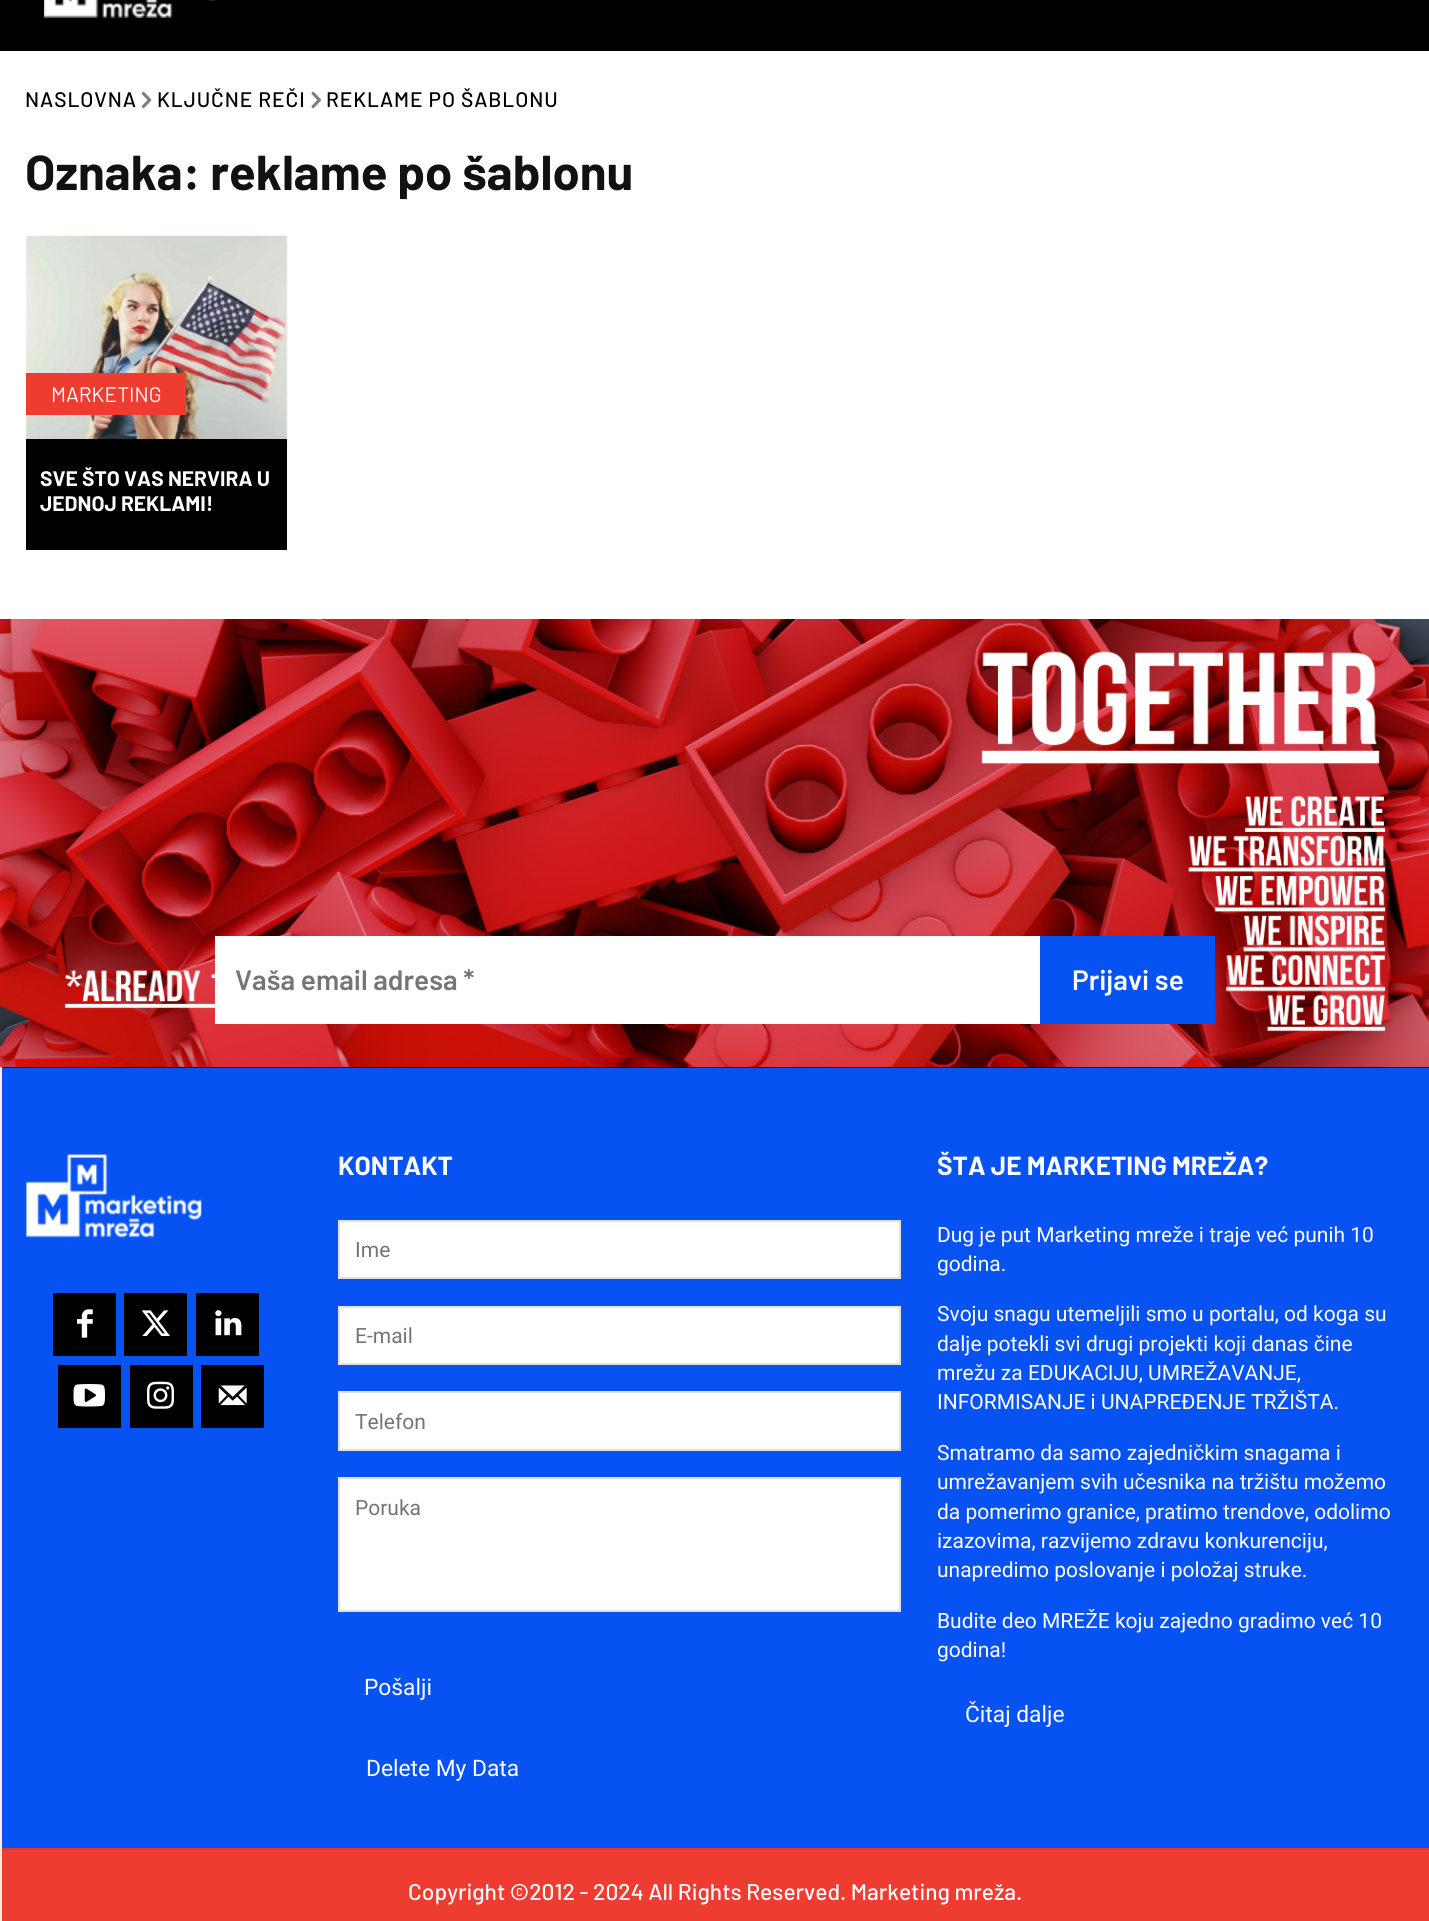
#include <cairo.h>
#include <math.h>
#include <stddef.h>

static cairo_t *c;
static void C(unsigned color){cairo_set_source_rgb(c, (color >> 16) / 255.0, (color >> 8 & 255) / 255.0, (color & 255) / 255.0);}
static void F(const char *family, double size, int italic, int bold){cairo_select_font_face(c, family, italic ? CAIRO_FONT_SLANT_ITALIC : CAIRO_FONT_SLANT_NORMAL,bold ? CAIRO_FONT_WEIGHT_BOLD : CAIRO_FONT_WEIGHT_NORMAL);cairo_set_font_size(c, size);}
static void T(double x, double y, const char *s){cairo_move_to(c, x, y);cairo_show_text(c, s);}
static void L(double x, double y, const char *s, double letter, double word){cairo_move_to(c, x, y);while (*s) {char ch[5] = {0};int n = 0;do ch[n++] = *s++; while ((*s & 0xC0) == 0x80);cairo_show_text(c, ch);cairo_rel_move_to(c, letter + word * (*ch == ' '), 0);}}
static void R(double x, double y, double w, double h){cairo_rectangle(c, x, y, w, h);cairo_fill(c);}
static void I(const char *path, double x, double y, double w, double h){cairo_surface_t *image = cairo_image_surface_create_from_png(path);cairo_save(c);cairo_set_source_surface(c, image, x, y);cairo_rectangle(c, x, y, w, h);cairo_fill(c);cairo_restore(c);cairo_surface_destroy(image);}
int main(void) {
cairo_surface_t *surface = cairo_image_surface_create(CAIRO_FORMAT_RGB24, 1429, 1921);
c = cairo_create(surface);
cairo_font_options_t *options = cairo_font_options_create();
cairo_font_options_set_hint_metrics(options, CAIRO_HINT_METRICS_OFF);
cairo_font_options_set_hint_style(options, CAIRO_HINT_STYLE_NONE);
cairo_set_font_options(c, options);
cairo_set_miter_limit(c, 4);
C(0xffffff);
cairo_paint(c);
C(0x000000);
R(0,0,1429,51);
I("1.png",44,0,172,18);
F("Barlow Medium",21,0,0);
L(25,107,"NASLOVNA",.9,0);
I("2.png",141,91,11,18);
L(157,107,"KLJUČNE REČI",.9,0);
I("3.png",311,91,10,18);
L(326,107,"REKLAME PO ŠABLONU",.9,0);
F("Barlow",49,0,1);
C(0x111111);
T(25,190,"Oznaka: reklame po šablonu");
I("4.png",26,235,262,211);
C(0xef3c31);
R(26,373,160,42);
F("Barlow",21,0,0);
C(0xffffff);
T(51,402,"MARKETING");
C(0x000000);
R(26,439,261,111);
F("Barlow",21,0,1);
C(0xffffff);
T(40,486,"SVE ŠTO VAS NERVIRA U");
T(40,511,"JEDNOJ REKLAMI!");
I("5.png",0,619,1429,448);
R(215,936,825,88);
F("Barlow SemiBold",28,0,0);
C(0x757575);
T(235,990,"Vaša email adresa *");
C(0x0752f2);
R(1040,936,175,88);
C(0xffffff);
T(1072,990,"Prijavi se");
C(0x000000);
R(2,1067,1427,1);
C(0xffecdd);
R(0,1067,2,854);
C(0x0752f2);
R(2,1068,1427,780);
I("6.png",26,1154,176,84);
C(0x000000);
R(53,1293,63,63);
I("7.png",77,1309,16,29);
R(124,1293,63,63);
I("8.png",141,1310,29,26);
R(196,1293,63,63);
I("9.png",215,1310,27,26);
R(58,1365,63,63);
I("10.png",73,1384,32,23);
R(130,1365,63,63);
I("11.png",147,1381,27,28);
R(201,1365,63,63);
I("12.png",218,1385,29,21);
F("Barlow",26.25,0,1);
C(0xffffff);
T(338,1175,"KONTAKT");
cairo_rectangle(c,339,1221,561,57);
cairo_fill_preserve(c);
C(0xe1e1e1);
cairo_stroke(c);
F("Roboto",21,0,0);
C(0x757575);
T(355,1257,"Ime");
C(0xffffff);
cairo_rectangle(c,339,1307,561,57);
cairo_fill_preserve(c);
C(0xe1e1e1);
cairo_stroke(c);
C(0x757575);
T(355,1343,"E-mail");
C(0xffffff);
cairo_rectangle(c,339,1392,561,58);
cairo_fill_preserve(c);
C(0xe1e1e1);
cairo_stroke(c);
C(0x757575);
T(355,1429,"Telefon");
C(0xffffff);
cairo_rectangle(c,339,1478,561,133);
cairo_fill_preserve(c);
C(0xe1e1e1);
cairo_stroke(c);
C(0x757575);
T(355,1515,"Poruka");
F("Roboto",22.75,0,0);
C(0xffffff);
T(364,1695,"Pošalji");
T(366,1776,"Delete My Data");
F("Barlow",26.25,0,1);
T(937,1175,"ŠTA JE MARKETING MREŽA?");
F("Roboto",21,0,0);
T(937,1242,"Dug je put Marketing mreže i traje već punih 10");
T(937,1271,"godina.");
T(937,1321,"Svoju snagu utemeljili smo u portalu, od koga su");
T(937,1351,"dalje potekli svi drugi projekti koji danas čine");
T(937,1380,"mrežu za EDUKACIJU, UMREŽAVANJE,");
T(937,1409,"INFORMISANJE i UNAPREĐENJE TRŽIŠTA.");
T(937,1460,"Smatramo da samo zajedničkim snagama i");
T(937,1489,"umrežavanjem svih učesnika na tržištu možemo");
T(937,1519,"da pomerimo granice, pratimo trendove, odolimo");
T(937,1548,"izazovima, razvijemo zdravu konkurenciju,");
T(937,1577,"unapredimo poslovanje i položaj struke.");
T(937,1628,"Budite deo MREŽE koju zajedno gradimo već 10");
T(937,1657,"godina!");
F("Roboto",22.75,0,0);
T(965,1722,"Čitaj dalje");
C(0xef3c31);
R(2,1850,1427,71);
C(0xde382e);
R(2,1848,1427,2);
F("Barlow Medium",22.75,0,0);
C(0xffffff);
T(408,1900,"Copyright ©2012 - 2024 All Rights Reserved. Marketing mreža.");
cairo_surface_write_to_png(surface, "o.png");
cairo_font_options_destroy(options);
cairo_destroy(c);
cairo_surface_destroy(surface);
return 0;
}
